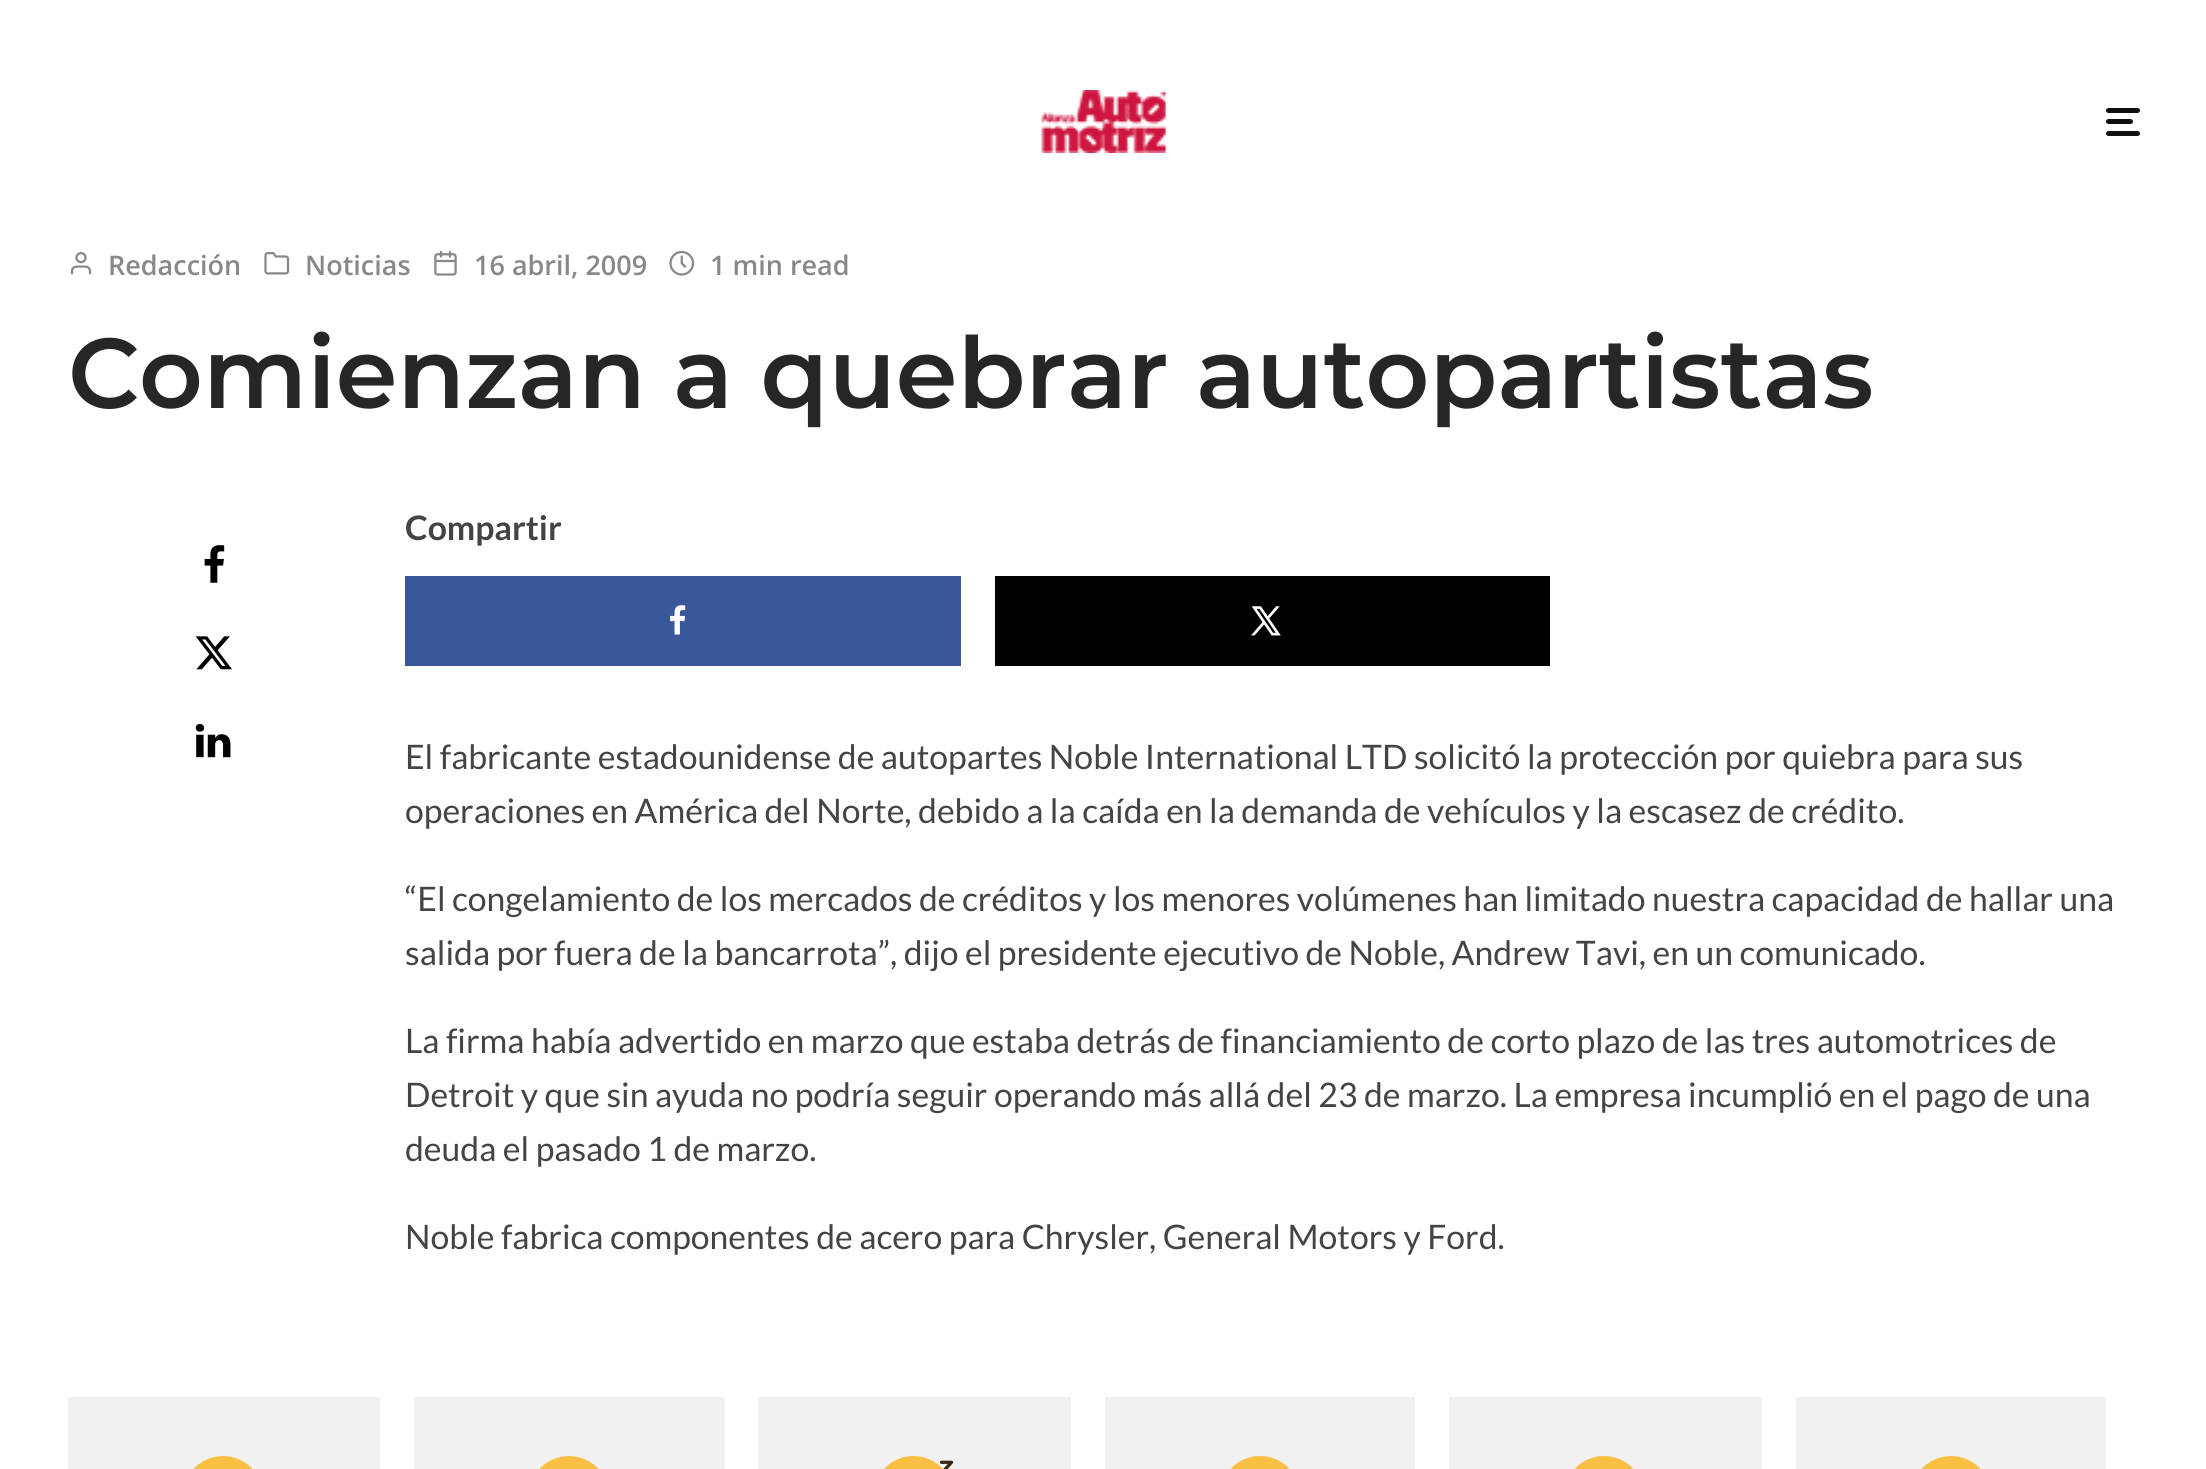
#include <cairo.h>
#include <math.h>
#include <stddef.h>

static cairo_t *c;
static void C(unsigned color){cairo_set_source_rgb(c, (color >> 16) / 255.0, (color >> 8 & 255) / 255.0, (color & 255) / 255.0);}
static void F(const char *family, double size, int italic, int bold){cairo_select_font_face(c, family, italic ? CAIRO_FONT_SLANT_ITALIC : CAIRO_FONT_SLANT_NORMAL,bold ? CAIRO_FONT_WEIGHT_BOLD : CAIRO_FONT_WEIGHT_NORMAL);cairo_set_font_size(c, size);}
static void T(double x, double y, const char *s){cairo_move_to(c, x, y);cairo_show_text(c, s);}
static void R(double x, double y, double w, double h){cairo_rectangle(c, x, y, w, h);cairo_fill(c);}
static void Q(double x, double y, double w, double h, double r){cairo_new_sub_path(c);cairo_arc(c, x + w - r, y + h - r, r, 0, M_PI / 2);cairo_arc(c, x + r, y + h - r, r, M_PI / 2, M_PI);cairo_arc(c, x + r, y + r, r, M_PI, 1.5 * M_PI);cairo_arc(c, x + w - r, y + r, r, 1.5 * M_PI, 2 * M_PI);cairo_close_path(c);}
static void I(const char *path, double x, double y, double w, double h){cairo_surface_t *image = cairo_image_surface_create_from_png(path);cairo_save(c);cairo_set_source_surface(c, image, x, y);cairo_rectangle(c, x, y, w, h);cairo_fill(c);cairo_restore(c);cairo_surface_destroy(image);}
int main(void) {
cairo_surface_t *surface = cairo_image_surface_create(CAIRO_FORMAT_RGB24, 2206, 1469);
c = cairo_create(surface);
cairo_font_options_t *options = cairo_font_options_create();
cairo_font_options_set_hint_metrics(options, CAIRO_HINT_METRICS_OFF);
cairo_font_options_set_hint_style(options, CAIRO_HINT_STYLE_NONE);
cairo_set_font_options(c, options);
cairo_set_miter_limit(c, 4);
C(0xffffff);
cairo_paint(c);
I("1.png",1041,90,126,63);
C(0x111111);
Q(2106,119,27,5,2.5);
cairo_fill(c);
Q(2106,108,34,5,2.5);
cairo_fill(c);
Q(2106,131,34,5,2.5);
cairo_fill(c);
I("2.png",70,252,22,23);
F("Open Sans SemiBold",27,0,0);
C(0x888888);
T(108,275,"Redacción");
I("3.png",264,252,26,23);
T(305,275,"Noticias");
I("4.png",434,250,23,26);
T(474,275,"16 abril, 2009");
I("5.png",669,250,26,26);
T(710,275,"1 min read");
F("Montserrat SemiBold",99,0,0);
C(0x262626);
T(68,408,"Comienzan a quebrar autopartistas");
I("6.png",204,545,21,38);
I("7.png",195,636,37,34);
I("8.png",195,724,36,34);
F("Lato",33.75,0,1);
C(0x444444);
T(405,540,"Compartir");
C(0x3a579a);
R(405,576,556,90);
I("9.png",670,605,16,30);
C(0x000000);
R(995,576,555,90);
I("10.png",1251,606,30,30);
F("Lato",33.75,0,0);
C(0x444444);
T(405,769,"El fabricante estadounidense de autopartes Noble International LTD solicitó la protección por quiebra para sus");
T(405,823,"operaciones en América del Norte, debido a la caída en la demanda de vehículos y la escasez de crédito.");
T(405,911,"“El congelamiento de los mercados de créditos y los menores volúmenes han limitado nuestra capacidad de hallar una");
T(405,965,"salida por fuera de la bancarrota”, dijo el presidente ejecutivo de Noble, Andrew Tavi, en un comunicado.");
T(405,1053,"La firma había advertido en marzo que estaba detrás de financiamiento de corto plazo de las tres automotrices de");
T(405,1107,"Detroit y que sin ayuda no podría seguir operando más allá del 23 de marzo. La empresa incumplió en el pago de una");
T(405,1161,"deuda el pasado 1 de marzo.");
T(405,1249,"Noble fabrica componentes de acero para Chrysler, General Motors y Ford.");
C(0xf1f1f1);
R(68,1397,312,72);
I("11.png",193,1456,60,13);
R(414,1397,311,72);
I("11.png",539,1456,60,13);
R(758,1397,313,72);
I("12.png",884,1456,70,13);
R(1105,1397,310,72);
I("11.png",1230,1456,60,13);
R(1449,1397,313,72);
I("11.png",1574,1456,60,13);
R(1796,1397,310,72);
C(0xf9bf44);
cairo_arc(c,1951,1496,40,0,2 * M_PI);
cairo_fill(c);
cairo_surface_write_to_png(surface, "o.png");
cairo_font_options_destroy(options);
cairo_destroy(c);
cairo_surface_destroy(surface);
return 0;
}
